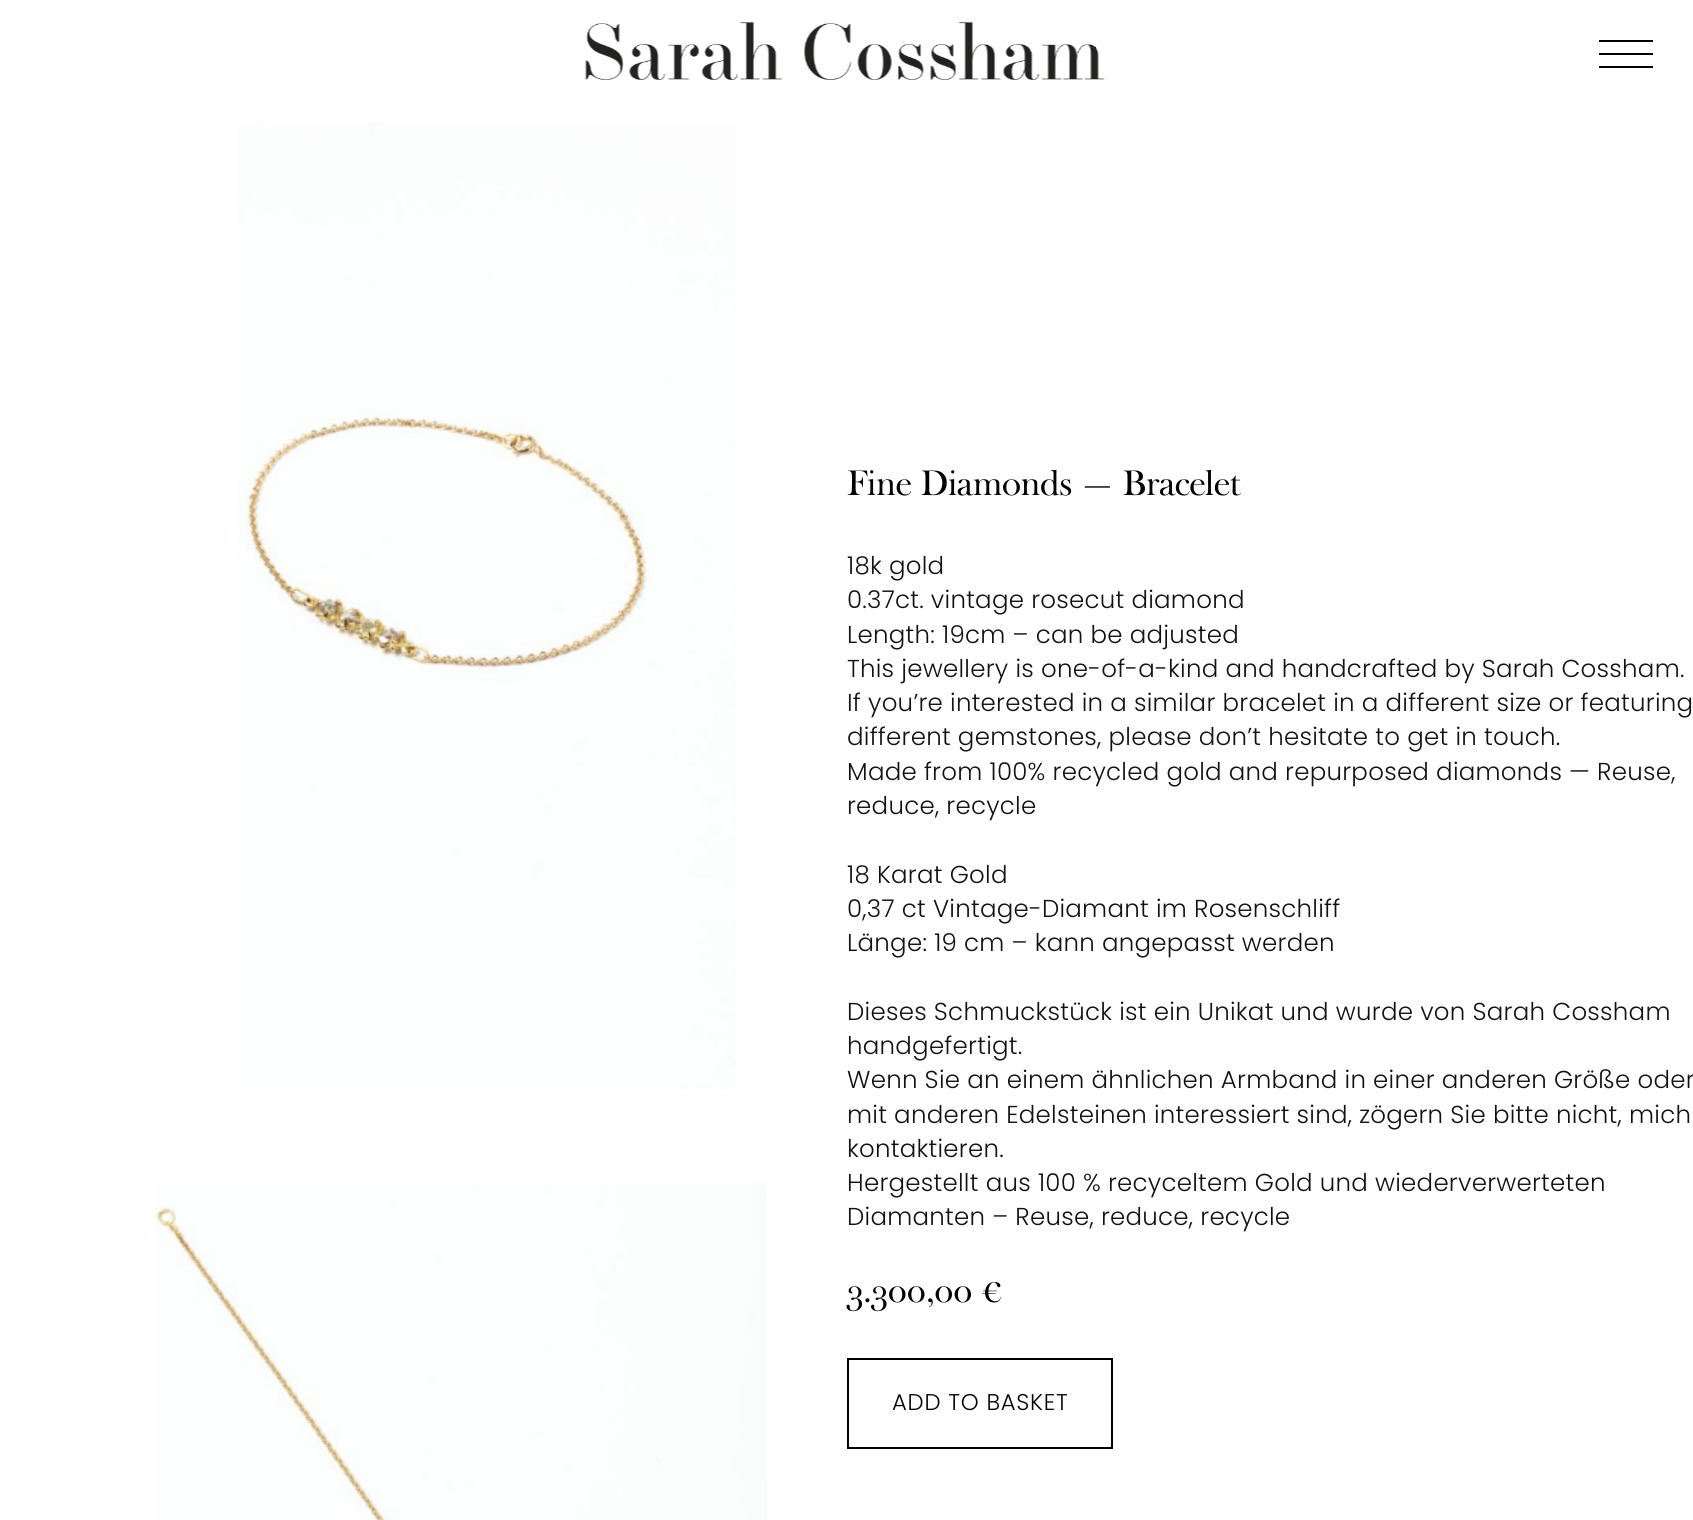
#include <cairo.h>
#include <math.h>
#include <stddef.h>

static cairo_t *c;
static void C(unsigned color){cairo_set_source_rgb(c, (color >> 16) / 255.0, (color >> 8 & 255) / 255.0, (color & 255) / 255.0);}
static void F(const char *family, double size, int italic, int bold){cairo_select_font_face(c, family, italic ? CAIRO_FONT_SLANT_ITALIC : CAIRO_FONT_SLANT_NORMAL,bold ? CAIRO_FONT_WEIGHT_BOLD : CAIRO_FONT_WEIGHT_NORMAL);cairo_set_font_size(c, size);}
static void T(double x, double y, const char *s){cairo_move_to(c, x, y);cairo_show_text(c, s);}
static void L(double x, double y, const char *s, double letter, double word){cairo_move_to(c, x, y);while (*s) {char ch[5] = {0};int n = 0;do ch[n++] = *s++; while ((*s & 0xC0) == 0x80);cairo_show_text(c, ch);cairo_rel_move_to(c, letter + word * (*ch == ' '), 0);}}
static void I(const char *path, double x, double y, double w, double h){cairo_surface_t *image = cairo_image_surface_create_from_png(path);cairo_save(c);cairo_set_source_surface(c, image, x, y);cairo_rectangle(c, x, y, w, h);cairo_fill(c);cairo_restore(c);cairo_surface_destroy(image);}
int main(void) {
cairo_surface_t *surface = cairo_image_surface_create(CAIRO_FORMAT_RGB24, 1693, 1520);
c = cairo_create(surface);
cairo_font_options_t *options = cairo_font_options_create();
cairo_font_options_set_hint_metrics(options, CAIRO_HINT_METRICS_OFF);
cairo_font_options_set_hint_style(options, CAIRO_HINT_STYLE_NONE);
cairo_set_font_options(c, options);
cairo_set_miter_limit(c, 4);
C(0xffffff);
cairo_paint(c);
I("1.png",585,22,520,58);
C(0x000000);
cairo_new_path(c);
cairo_move_to(c,1599,55);
cairo_line_to(c,1599,53);
cairo_line_to(c,1653,53);
cairo_line_to(c,1653,55);
cairo_close_path(c);
cairo_move_to(c,1599,42);
cairo_line_to(c,1599,40);
cairo_line_to(c,1653,40);
cairo_line_to(c,1653,42);
cairo_close_path(c);
cairo_move_to(c,1599,68);
cairo_line_to(c,1599,66);
cairo_line_to(c,1653,66);
cairo_line_to(c,1653,68);
cairo_close_path(c);
cairo_fill(c);
I("2.png",237,123,500,967);
I("3.png",155,1183,612,337);
F("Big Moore",35,0,0);
T(847,495,"Fine Diamonds — Bracelet");
F("Poppins Light",24.5,0,0);
C(0x121212);
L(847,574,"18k gold",.25,0);
L(847,608,"0.37ct. vintage rosecut diamond",.25,0);
L(847,643,"Length: 19cm – can be adjusted",.25,0);
L(847,677,"This jewellery is one-of-a-kind and handcrafted by Sarah Cossham.",.25,0);
L(847,711,"If you’re interested in a similar bracelet in a different size or featuring",.25,0);
L(847,745,"different gemstones, please don’t hesitate to get in touch.",.25,0);
L(847,780,"Made from 100% recycled gold and repurposed diamonds — Reuse,",.25,0);
L(847,814,"reduce, recycle",.25,0);
L(847,883,"18 Karat Gold",.25,0);
L(847,917,"0,37 ct Vintage-Diamant im Rosenschliff",.25,0);
L(847,951,"Länge: 19 cm – kann angepasst werden",.25,0);
L(847,1020,"Dieses Schmuckstück ist ein Unikat und wurde von Sarah Cossham",.25,0);
L(847,1054,"handgefertigt.",.25,0);
L(847,1088,"Wenn Sie an einem ähnlichen Armband in einer anderen Größe oder",.25,0);
L(847,1123,"mit anderen Edelsteinen interessiert sind, zögern Sie bitte nicht, mich",.25,0);
L(847,1157,"kontaktieren.",.25,0);
L(847,1191,"Hergestellt aus 100 % recyceltem Gold und wiederverwerteten",.25,0);
L(847,1225,"Diamanten – Reuse, reduce, recycle",.25,0);
F("Big Moore",35,0,0);
C(0x000000);
T(847,1302,"3.300,00 €");
cairo_rectangle(c,848,1359,264,89);
cairo_stroke(c);
F("Poppins Light",22.75,0,0);
L(892,1410,"ADD TO BASKET",.75,0);
cairo_surface_write_to_png(surface, "o.png");
cairo_font_options_destroy(options);
cairo_destroy(c);
cairo_surface_destroy(surface);
return 0;
}
